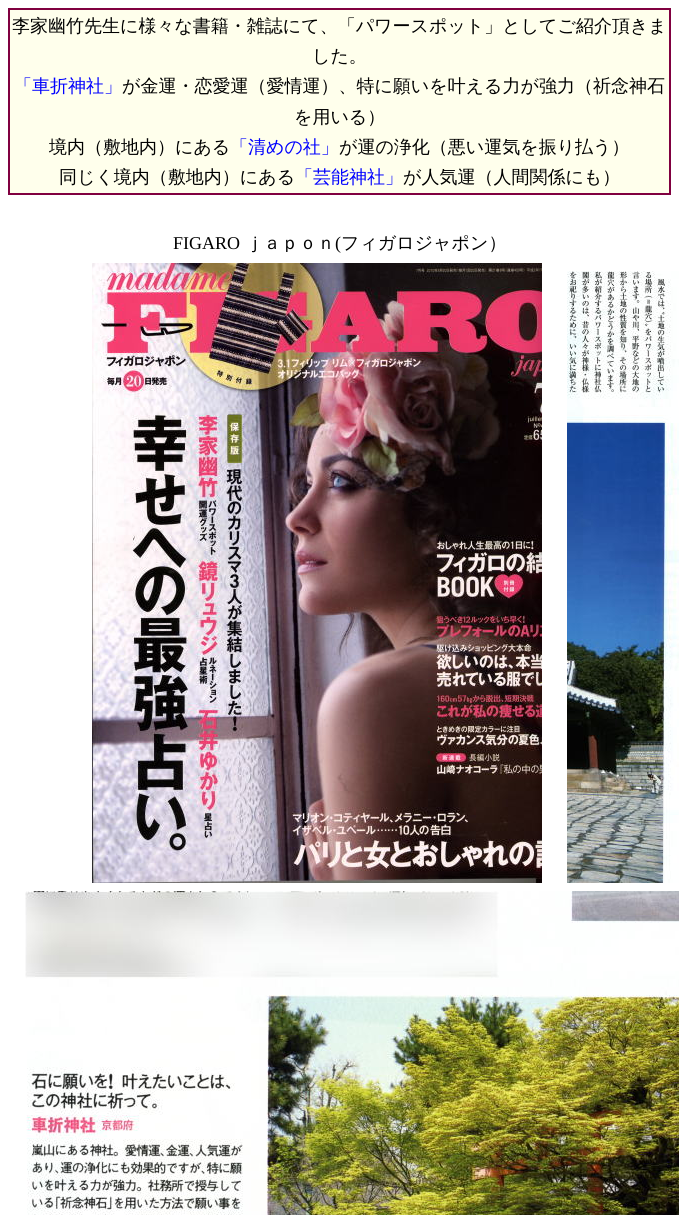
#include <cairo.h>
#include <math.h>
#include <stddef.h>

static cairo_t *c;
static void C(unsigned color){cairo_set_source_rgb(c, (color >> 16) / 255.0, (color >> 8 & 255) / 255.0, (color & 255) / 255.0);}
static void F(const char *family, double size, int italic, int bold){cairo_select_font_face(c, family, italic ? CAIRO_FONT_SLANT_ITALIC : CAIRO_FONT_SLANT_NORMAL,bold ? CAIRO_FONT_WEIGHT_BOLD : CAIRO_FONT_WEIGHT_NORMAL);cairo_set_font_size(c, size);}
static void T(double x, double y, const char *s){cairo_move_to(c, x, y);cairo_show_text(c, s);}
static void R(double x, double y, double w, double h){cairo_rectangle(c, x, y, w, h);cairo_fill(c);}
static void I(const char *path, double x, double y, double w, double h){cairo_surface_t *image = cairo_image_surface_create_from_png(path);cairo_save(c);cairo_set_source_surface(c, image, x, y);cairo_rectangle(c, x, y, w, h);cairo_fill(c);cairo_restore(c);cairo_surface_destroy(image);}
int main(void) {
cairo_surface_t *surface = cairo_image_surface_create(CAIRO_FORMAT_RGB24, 679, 1215);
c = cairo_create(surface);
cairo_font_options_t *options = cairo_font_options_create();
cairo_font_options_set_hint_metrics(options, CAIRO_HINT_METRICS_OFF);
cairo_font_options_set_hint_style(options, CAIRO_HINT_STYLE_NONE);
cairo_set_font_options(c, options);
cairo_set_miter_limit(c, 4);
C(0xffffff);
cairo_paint(c);
C(0x800040);
R(8,8,663,187);
C(0xffffec);
R(10,10,659,183);
F("WenQuanYi Zen Hei Medium",18,0,0);
C(0x000000);
T(12,32,"李家幽竹先生に様々な書籍・雑誌にて、「パワースポット」としてご紹介頂きま");
T(312,62,"した。");
C(0x0000ff);
T(14,92,"「車折神社」");
C(0x000000);
T(122,92,"が金運・恋愛運（愛情運）、特に願いを叶える力が強力（祈念神石");
T(294,123,"を用いる）");
T(49,153,"境内（敷地内）にある");
C(0x0000ff);
T(230,153,"「清めの社」");
C(0x000000);
T(339,153,"が運の浄化（悪い運気を振り払う）");
T(59,183,"同じく境内（敷地内）にある");
C(0x0000ff);
T(295,183,"「芸能神社」");
C(0x000000);
T(403,183,"が人気運（人間関係にも）");
F("Liberation Serif",18,0,0);
T(173,249,"FIGARO");
F("WenQuanYi Zen Hei Medium",18,0,0);
T(245,249,"ｊａｐｏｎ");
F("Liberation Serif",18,0,0);
T(335,249,"(");
F("WenQuanYi Zen Hei Medium",18,0,0);
T(341,249,"フィガロジャポン）");
I("1.png",92,263,450,620);
I("2.png",567,271,112,612);
I("3.png",25,891,654,324);
cairo_surface_write_to_png(surface, "o.png");
cairo_font_options_destroy(options);
cairo_destroy(c);
cairo_surface_destroy(surface);
return 0;
}
